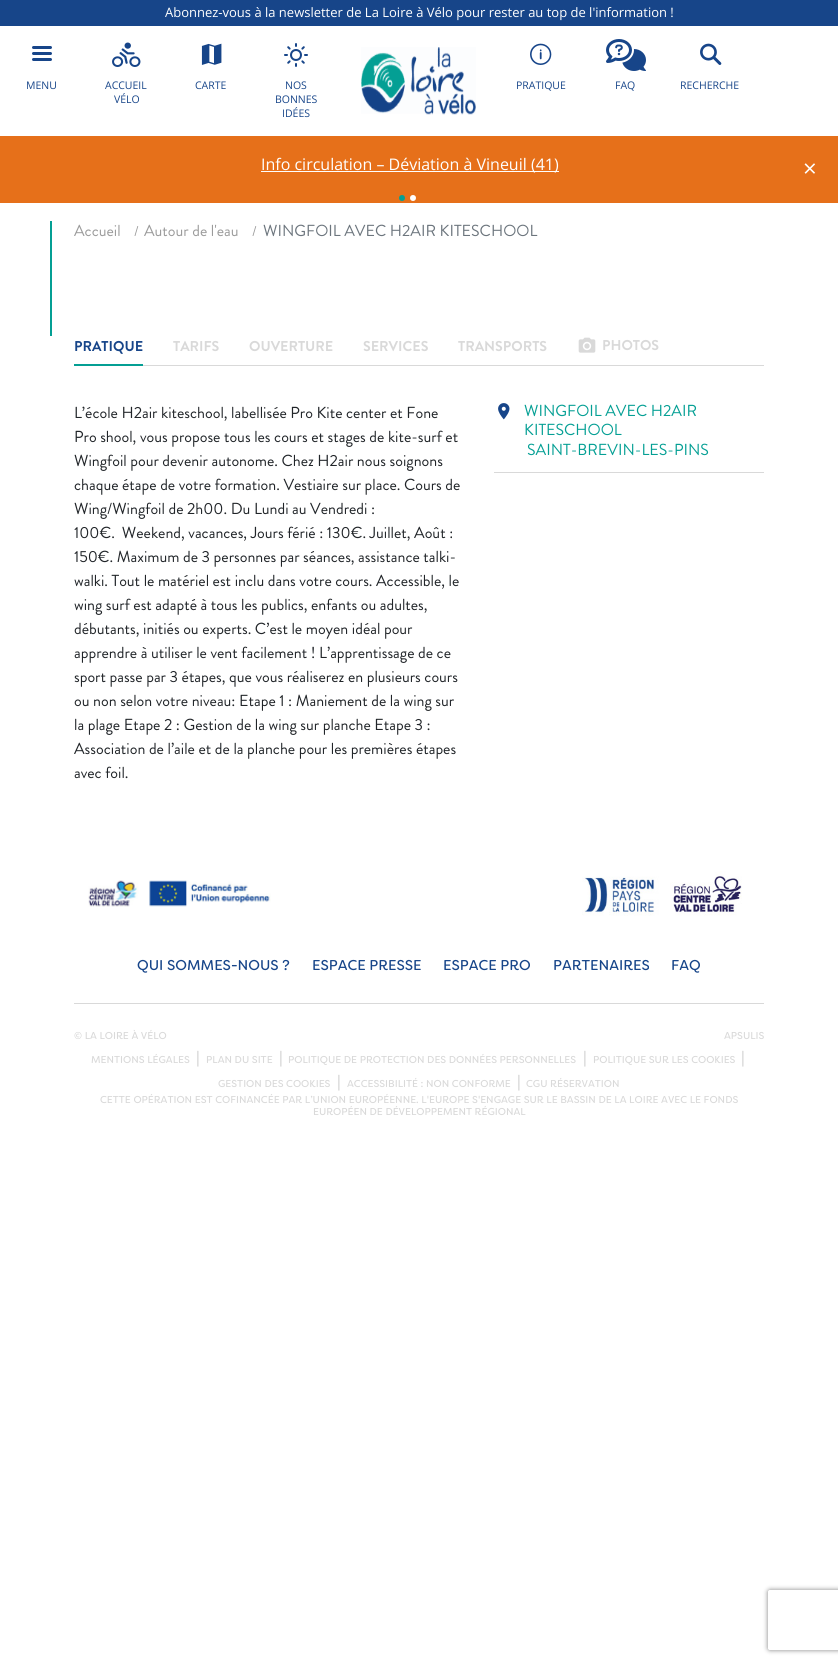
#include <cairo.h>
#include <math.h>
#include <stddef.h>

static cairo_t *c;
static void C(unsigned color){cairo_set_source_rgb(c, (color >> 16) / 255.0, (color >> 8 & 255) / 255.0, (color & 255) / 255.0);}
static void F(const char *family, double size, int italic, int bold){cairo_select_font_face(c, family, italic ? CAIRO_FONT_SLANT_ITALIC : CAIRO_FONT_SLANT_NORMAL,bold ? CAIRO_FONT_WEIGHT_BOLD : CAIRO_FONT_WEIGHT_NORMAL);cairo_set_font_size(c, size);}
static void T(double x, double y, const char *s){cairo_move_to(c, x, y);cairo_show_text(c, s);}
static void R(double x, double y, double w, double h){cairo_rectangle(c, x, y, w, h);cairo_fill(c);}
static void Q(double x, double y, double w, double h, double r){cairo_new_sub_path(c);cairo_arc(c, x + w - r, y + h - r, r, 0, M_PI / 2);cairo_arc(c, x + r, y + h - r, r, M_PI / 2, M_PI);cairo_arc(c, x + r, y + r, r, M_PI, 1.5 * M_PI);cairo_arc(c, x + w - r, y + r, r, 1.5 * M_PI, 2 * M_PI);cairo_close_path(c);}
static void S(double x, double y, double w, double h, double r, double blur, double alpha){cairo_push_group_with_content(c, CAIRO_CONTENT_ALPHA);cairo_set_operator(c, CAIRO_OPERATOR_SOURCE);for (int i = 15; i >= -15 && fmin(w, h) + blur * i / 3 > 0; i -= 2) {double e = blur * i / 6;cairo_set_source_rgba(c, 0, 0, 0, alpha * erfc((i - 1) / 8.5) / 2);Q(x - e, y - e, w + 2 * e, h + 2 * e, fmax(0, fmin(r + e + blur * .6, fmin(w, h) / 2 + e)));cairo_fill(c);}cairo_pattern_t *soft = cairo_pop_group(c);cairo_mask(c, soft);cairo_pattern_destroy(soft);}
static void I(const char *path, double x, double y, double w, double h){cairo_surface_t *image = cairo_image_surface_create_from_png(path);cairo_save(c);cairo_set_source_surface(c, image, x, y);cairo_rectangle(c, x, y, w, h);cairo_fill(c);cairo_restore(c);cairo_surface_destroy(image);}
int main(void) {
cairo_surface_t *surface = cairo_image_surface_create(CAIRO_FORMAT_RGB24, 838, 1664);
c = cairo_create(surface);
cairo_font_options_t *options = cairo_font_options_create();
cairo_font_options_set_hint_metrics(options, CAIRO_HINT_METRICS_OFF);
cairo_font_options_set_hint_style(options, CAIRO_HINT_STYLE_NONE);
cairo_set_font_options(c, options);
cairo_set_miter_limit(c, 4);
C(0xffffff);
cairo_paint(c);
C(0x174589);
R(0,0,838,26);
F("Open Sans",13,0,0);
C(0xffffff);
T(165,17,"Abonnez-vous à la newsletter de La Loire à Vélo pour rester au top de l'information !");
C(0x174589);
Q(32,46,20,3,1.5);
cairo_fill(c);
Q(32,52,20,3,1.5);
cairo_fill(c);
Q(32,58,20,3,1.5);
cairo_fill(c);
F("Open Sans",10.5,0,0);
T(26,89,"MENU");
I("1.png",112,42,29,25);
T(105,89,"ACCUEIL");
T(114,103,"VÉLO");
I("2.png",201,43,21,22);
T(195,89,"CARTE");
I("3.png",284,43,24,24);
T(285,89,"NOS");
T(275,103,"BONNES");
T(282,117,"IDÉES");
I("4.png",361,47,115,68);
I("5.png",530,43,22,22);
T(516,89,"PRATIQUE");
I("6.png",606,39,40,32);
T(615,89,"FAQ");
I("7.png",700,43,22,22);
T(680,89,"RECHERCHE");
C(0xe6701a);
R(0,136,838,67);
C(0xffffff);
R(261,171,298,1);
F("Open Sans",16,0,0);
T(261,170,"Info circulation – Déviation à Vineuil (41)");
C(0x049f94);
cairo_new_path(c);
cairo_arc(c,402,198,3,0,2 * M_PI);
cairo_fill(c);
C(0xffffff);
cairo_arc(c,413,198,3,0,2 * M_PI);
cairo_fill(c);
F("Open Sans",24,0,0);
T(803,177,"×");
C(0x049f94);
R(50,221,2,115);
F("Brandon Grotesque",16,0,0);
C(0x9b9b9b);
T(74,236,"Accueil");
F("Brandon Grotesque",14.25,0,0);
T(134,236,"/");
F("Brandon Grotesque",16,0,0);
T(144,236,"Autour de l'eau");
F("Brandon Grotesque",14.25,0,0);
T(252,236,"/");
F("Brandon Grotesque",16,0,0);
C(0x6c757d);
T(263,236,"WINGFOIL AVEC H2AIR KITESCHOOL");
C(0xd9d9d9);
R(143,365,621,1);
F("Brandon Grotesque",14.25,0,1);
C(0x174589);
T(74,351,"PRATIQUE");
C(0x049f94);
R(74,364,69,2);
C(0xd9d9d9);
T(173,351,"TARIFS");
T(249,351,"OUVERTURE");
T(363,351,"SERVICES");
T(458,351,"TRANSPORTS");
I("8.png",578,337,18,16);
T(602,350,"PHOTOS");
F("Brandon Grotesque",16,0,0);
C(0x212529);
T(74,418,"L’école H2air kiteschool, labellisée Pro Kite center et Fone");
T(74,442,"Pro shool, vous propose tous les cours et stages de kite-surf et");
T(74,466,"Wingfoil pour devenir autonome. Chez H2air nous soignons");
T(74,490,"chaque étape de votre formation. Vestiaire sur place. Cours de");
T(74,514,"Wing/Wingfoil de 2h00. Du Lundi au Vendredi :");
T(74,538,"100€.  Weekend, vacances, Jours férié : 130€. Juillet, Août :");
T(74,562,"150€. Maximum de 3 personnes par séances, assistance talki-");
T(74,586,"walki. Tout le matériel est inclu dans votre cours. Accessible, le");
T(74,610,"wing surf est adapté à tous les publics, enfants ou adultes,");
T(74,634,"débutants, initiés ou experts. C’est le moyen idéal pour");
T(74,658,"apprendre à utiliser le vent facilement ! L’apprentissage de ce");
T(74,682,"sport passe par 3 étapes, que vous réaliserez en plusieurs cours");
T(74,706,"ou non selon votre niveau: Etape 1 : Maniement de la wing sur");
T(74,730,"la plage Etape 2 : Gestion de la wing sur planche Etape 3 :");
T(74,754,"Association de l’aile et de la planche pour les premières étapes");
T(74,778,"avec foil.");
C(0xd9d9d9);
R(494,472,270,1);
I("9.png",498,403,12,17);
C(0x049f94);
T(524,416,"WINGFOIL AVEC H2AIR");
T(524,435,"KITESCHOOL");
T(527,455,"SAINT-BREVIN-LES-PINS");
I("10.png",88,880,183,27);
I("11.png",582,871,160,45);
F("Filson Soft",14.25,0,0);
C(0x174589);
T(137,970,"QUI SOMMES-NOUS ?");
T(312,970,"ESPACE PRESSE");
T(443,970,"ESPACE PRO");
T(553,970,"PARTENAIRES");
T(671,970,"FAQ");
C(0xd9d9d9);
R(74,1003,690,1);
F("Filson Soft",10,0,0);
T(74,1039,"© LA LOIRE À VÉLO");
T(724,1039,"APSULIS");
T(91,1063,"MENTIONS LÉGALES");
F("Filson Soft",16,0,0);
T(196,1063,"|");
F("Filson Soft",10,0,0);
T(206,1063,"PLAN DU SITE");
F("Filson Soft",16,0,0);
T(279,1063,"|");
F("Filson Soft",10,0,0);
T(288,1063,"POLITIQUE DE PROTECTION DES DONNÉES PERSONNELLES");
F("Filson Soft",16,0,0);
T(583,1063,"|");
F("Filson Soft",10,0,0);
T(593,1063,"POLITIQUE SUR LES COOKIES");
F("Filson Soft",16,0,0);
T(741,1063,"|");
F("Filson Soft",10,0,0);
T(218,1087,"GESTION DES COOKIES");
F("Filson Soft",16,0,0);
T(337,1087,"|");
F("Filson Soft",10,0,0);
T(347,1087,"ACCESSIBILITÉ : NON CONFORME");
F("Filson Soft",16,0,0);
T(517,1087,"|");
F("Filson Soft",10,0,0);
T(526,1087,"CGU RÉSERVATION");
T(100,1103,"CETTE OPÉRATION EST COFINANCÉE PAR L’UNION EUROPÉENNE. L'EUROPE S'ENGAGE SUR LE BASSIN DE LA LOIRE AVEC LE FONDS");
T(313,1115,"EUROPÉEN DE DÉVELOPPEMENT RÉGIONAL");
cairo_save(c);
cairo_set_fill_rule(c,CAIRO_FILL_RULE_EVEN_ODD);
cairo_new_path(c);
cairo_move_to(c,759,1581);
cairo_line_to(c,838,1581);
cairo_line_to(c,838,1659);
cairo_line_to(c,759,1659);
cairo_close_path(c);
cairo_move_to(c,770,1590);
cairo_line_to(c,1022,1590);
cairo_curve_to(c,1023,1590,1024,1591,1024,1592);
cairo_line_to(c,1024,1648);
cairo_curve_to(c,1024,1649,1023,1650,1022,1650);
cairo_line_to(c,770,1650);
cairo_curve_to(c,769,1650,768,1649,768,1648);
cairo_line_to(c,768,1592);
cairo_curve_to(c,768,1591,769,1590,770,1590);
cairo_close_path(c);
cairo_clip(c);
C(0x808080);
S(768,1590,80,60,2,2.5,1);
cairo_restore(c);
cairo_surface_write_to_png(surface, "o.png");
cairo_font_options_destroy(options);
cairo_destroy(c);
cairo_surface_destroy(surface);
return 0;
}
